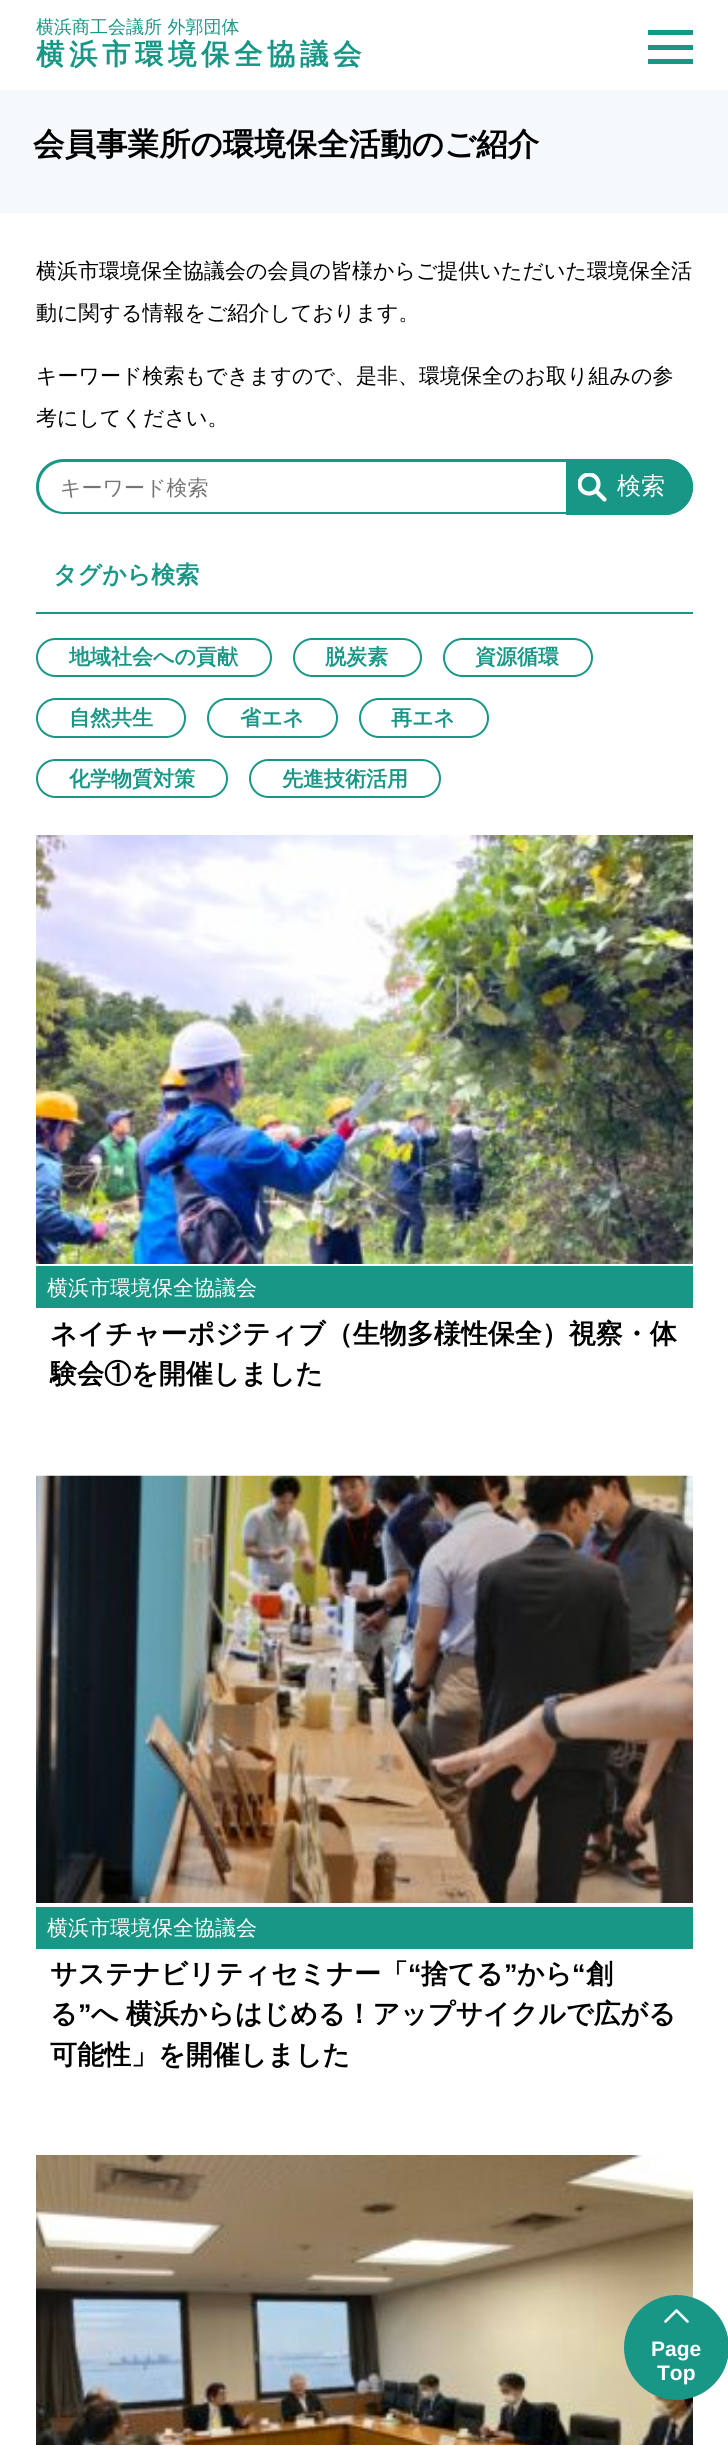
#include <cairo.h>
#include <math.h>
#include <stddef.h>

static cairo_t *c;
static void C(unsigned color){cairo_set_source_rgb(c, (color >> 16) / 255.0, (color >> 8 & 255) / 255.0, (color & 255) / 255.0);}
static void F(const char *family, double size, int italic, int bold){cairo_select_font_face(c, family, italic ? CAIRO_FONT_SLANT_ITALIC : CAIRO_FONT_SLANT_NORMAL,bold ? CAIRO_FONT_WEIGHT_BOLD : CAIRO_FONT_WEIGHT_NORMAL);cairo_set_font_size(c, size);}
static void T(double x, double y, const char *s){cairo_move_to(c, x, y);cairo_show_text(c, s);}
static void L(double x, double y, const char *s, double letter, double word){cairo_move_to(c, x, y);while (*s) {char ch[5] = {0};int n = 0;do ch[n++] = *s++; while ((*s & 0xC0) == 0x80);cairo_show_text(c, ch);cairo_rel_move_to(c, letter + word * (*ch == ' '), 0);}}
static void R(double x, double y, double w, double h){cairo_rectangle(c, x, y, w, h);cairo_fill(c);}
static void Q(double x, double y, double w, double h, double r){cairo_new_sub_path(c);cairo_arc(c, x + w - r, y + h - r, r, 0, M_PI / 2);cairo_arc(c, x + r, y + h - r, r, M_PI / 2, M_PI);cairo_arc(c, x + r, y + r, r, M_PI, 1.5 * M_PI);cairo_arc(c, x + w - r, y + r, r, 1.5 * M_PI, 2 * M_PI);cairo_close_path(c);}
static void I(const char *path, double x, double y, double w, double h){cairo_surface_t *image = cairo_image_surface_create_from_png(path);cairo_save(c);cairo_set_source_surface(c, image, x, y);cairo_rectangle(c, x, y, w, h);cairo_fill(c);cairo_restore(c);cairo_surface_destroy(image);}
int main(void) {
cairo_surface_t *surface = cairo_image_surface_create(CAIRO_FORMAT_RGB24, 728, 2445);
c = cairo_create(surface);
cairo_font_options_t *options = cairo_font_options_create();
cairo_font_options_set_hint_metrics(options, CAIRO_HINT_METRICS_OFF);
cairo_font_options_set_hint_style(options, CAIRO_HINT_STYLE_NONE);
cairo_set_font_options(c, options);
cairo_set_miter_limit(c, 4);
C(0xffffff);
cairo_paint(c);
F("WenQuanYi Zen Hei Medium",18,0,0);
C(0x189787);
T(36,33,"横浜商工会議所 外郭団体");
F("WenQuanYi Zen Hei",28.5,0,1);
L(36,64,"横浜市環境保全協議会",4.5,0);
R(648,30,45,5);
R(648,45,45,5);
R(648,59,45,5);
C(0xf5f9fb);
R(0,90,728,123);
F("WenQuanYi Zen Hei",31.5,0,1);
C(0x000000);
T(33,155,"会員事業所の環境保全活動のご紹介");
F("WenQuanYi Zen Hei Medium",21,0,0);
T(36,278,"横浜市環境保全協議会の会員の皆様からご提供いただいた環境保全活");
T(36,320,"動に関する情報をご紹介しております。");
T(36,383,"キーワード検索もできますので、是非、環境保全のお取り組みの参");
T(36,425,"考にしてください。");
C(0x189787);
cairo_set_fill_rule(c,CAIRO_FILL_RULE_EVEN_ODD);
cairo_new_path(c);
cairo_move_to(c,64,459);
cairo_line_to(c,566,459);
cairo_line_to(c,566,514);
cairo_line_to(c,64,514);
cairo_curve_to(c,48,514,36,502,36,487);
cairo_curve_to(c,36,471,48,459,64,459);
cairo_close_path(c);
cairo_move_to(c,64,462);
cairo_line_to(c,566,462);
cairo_line_to(c,566,512);
cairo_line_to(c,64,512);
cairo_curve_to(c,50,512,39,500,39,487);
cairo_curve_to(c,39,473,50,462,64,462);
cairo_close_path(c);
cairo_fill(c);
C(0x757575);
T(60,495,"キーワード検索");
C(0x189787);
cairo_new_path(c);
cairo_move_to(c,566,459);
cairo_line_to(c,665,459);
cairo_curve_to(c,680.5,459,693,471.5,693,487);
cairo_curve_to(c,693,502.5,680.5,515,665,515);
cairo_line_to(c,566,515);
cairo_close_path(c);
cairo_fill(c);
cairo_save(c);
cairo_set_fill_rule(c,CAIRO_FILL_RULE_WINDING);
cairo_rectangle(c,578,473,30,30);
cairo_clip(c);
cairo_arc(c,589,484,9.5,0,2 * M_PI);
C(0xffffff);
cairo_set_line_width(c,4.2);
cairo_stroke(c);
cairo_restore(c);
cairo_new_path(c);
cairo_move_to(c,597,492);
cairo_line_to(c,604.5,499.5);
C(0xffffff);
cairo_set_line_width(c,4.2);
cairo_set_line_cap(c,CAIRO_LINE_CAP_ROUND);
cairo_stroke(c);
cairo_new_path(c);
cairo_move_to(c,567.5,460.5);
cairo_line_to(c,665,460.5);
cairo_curve_to(c,679.5,460.5,691.5,472.5,691.5,487);
cairo_curve_to(c,691.5,501.5,679.5,513.5,665,513.5);
cairo_line_to(c,567.5,513.5);
cairo_close_path(c);
C(0x189787);
cairo_set_line_width(c,3);
cairo_set_line_cap(c,CAIRO_LINE_CAP_BUTT);
cairo_stroke(c);
F("WenQuanYi Zen Hei Medium",24,0,0);
C(0xffffff);
T(617,494,"検索");
C(0x189787);
R(36,612,657,2);
F("WenQuanYi Zen Hei",24,0,1);
T(53,583,"タグから検索");
Q(37,639,234,37,18.5);
cairo_set_line_width(c,2);
cairo_stroke(c);
F("WenQuanYi Zen Hei",21,0,1);
T(69,664,"地域社会への貢献");
Q(294,639,127,37,18.5);
cairo_stroke(c);
T(325,664,"脱炭素");
Q(444,639,148,37,18.5);
cairo_stroke(c);
T(475,664,"資源循環");
Q(37,699,148,38,19);
cairo_stroke(c);
T(69,725,"自然共生");
Q(208,699,129,38,19);
cairo_stroke(c);
T(240,725,"省エネ");
Q(360,699,128,38,19);
cairo_stroke(c);
T(391,725,"再エネ");
Q(37,760,190,37,18.5);
cairo_stroke(c);
T(69,786,"化学物質対策");
Q(250,760,190,37,18.5);
cairo_stroke(c);
T(282,786,"先進技術活用");
I("1.png",36,835,657,429);
R(36,1266,657,42);
F("WenQuanYi Zen Hei Medium",21,0,0);
C(0xffffff);
T(47,1295,"横浜市環境保全協議会");
F("WenQuanYi Zen Hei",27,0,1);
C(0x000000);
T(50,1343,"ネイチャーポジティブ（生物多様性保全）視察・体");
T(50,1383,"験会①を開催しました");
I("2.png",36,1475,657,428);
C(0x189787);
R(36,1907,657,42);
F("WenQuanYi Zen Hei Medium",21,0,0);
C(0xffffff);
T(47,1935,"横浜市環境保全協議会");
F("WenQuanYi Zen Hei",27,0,1);
C(0x000000);
T(50,1983,"サステナビリティセミナー「");
F("Liberation Sans",27,0,1);
T(408,1983,"“");
F("WenQuanYi Zen Hei",27,0,1);
T(421,1983,"捨てる");
F("Liberation Sans",27,0,1);
T(504,1983,"”");
F("WenQuanYi Zen Hei",27,0,1);
T(517,1983,"から");
F("Liberation Sans",27,0,1);
T(572,1983,"“");
F("WenQuanYi Zen Hei",27,0,1);
T(586,1983,"創");
T(50,2023,"る");
F("Liberation Sans",27,0,1);
T(78,2023,"”");
F("WenQuanYi Zen Hei",27,0,1);
L(91,2023,"へ 横浜からはじめる！アップサイクルで広がる",0,-1);
T(50,2064,"可能性」を開催しました");
I("3.png",36,2155,657,290);
C(0x189787);
cairo_arc(c,676.5,2347.5,52.5,0,2 * M_PI);
cairo_fill(c);
cairo_new_path(c);
cairo_move_to(c,665.5,2321.5);
cairo_line_to(c,676.5,2310.5);
cairo_move_to(c,676.5,2310.5);
cairo_line_to(c,687.5,2321.5);
C(0xffffff);
cairo_set_line_width(c,2.6);
cairo_set_line_cap(c,CAIRO_LINE_CAP_ROUND);
cairo_stroke(c);
F("Liberation Sans",21,0,1);
T(651,2356,"Page");
T(657,2380,"Top");
cairo_surface_write_to_png(surface, "o.png");
cairo_font_options_destroy(options);
cairo_destroy(c);
cairo_surface_destroy(surface);
return 0;
}
